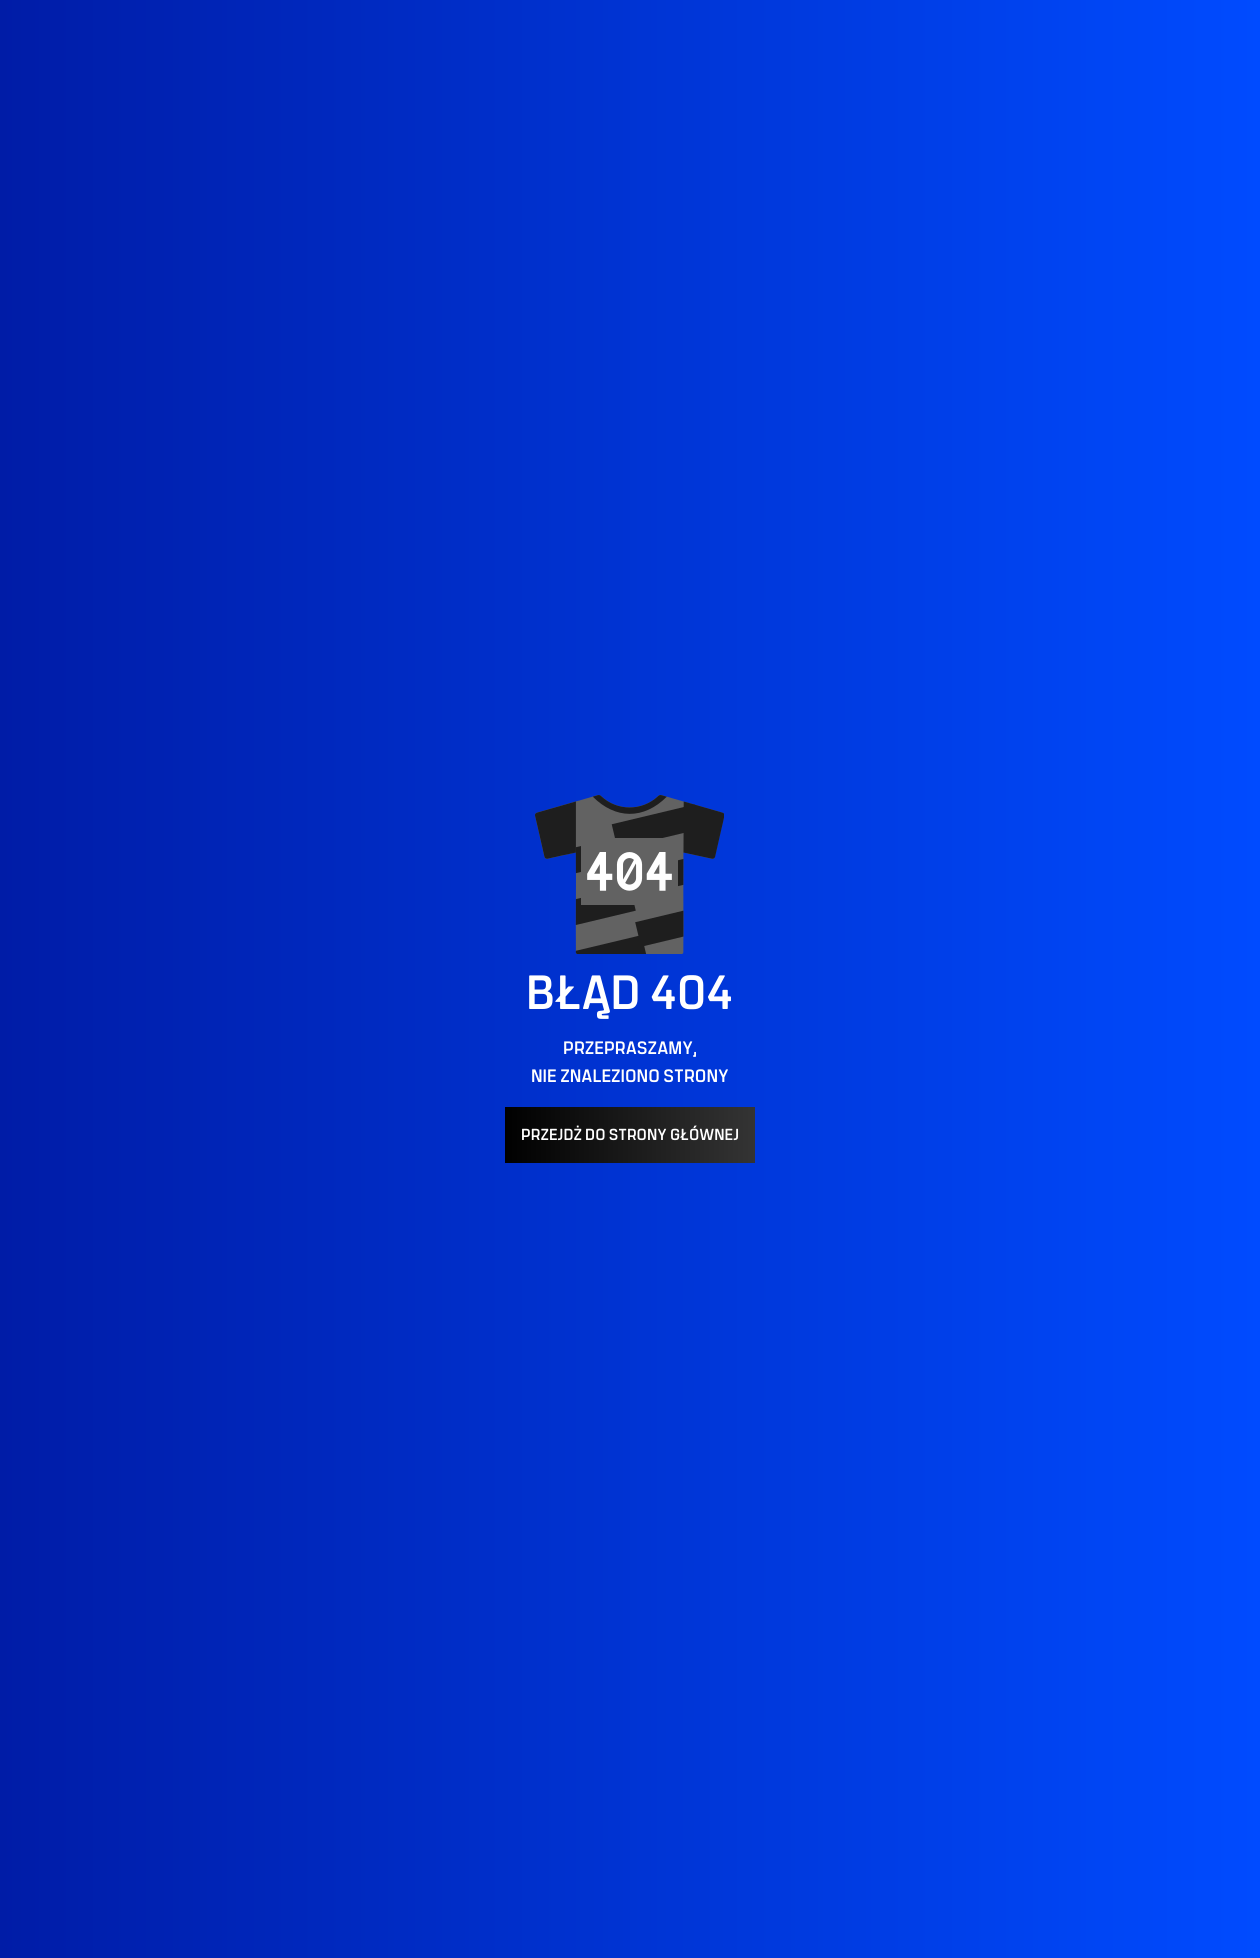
#include <cairo.h>
#include <math.h>
#include <stddef.h>

static cairo_t *c;
static void C(unsigned color){cairo_set_source_rgb(c, (color >> 16) / 255.0, (color >> 8 & 255) / 255.0, (color & 255) / 255.0);}
static void F(const char *family, double size, int italic, int bold){cairo_select_font_face(c, family, italic ? CAIRO_FONT_SLANT_ITALIC : CAIRO_FONT_SLANT_NORMAL,bold ? CAIRO_FONT_WEIGHT_BOLD : CAIRO_FONT_WEIGHT_NORMAL);cairo_set_font_size(c, size);}
static void T(double x, double y, const char *s){cairo_move_to(c, x, y);cairo_show_text(c, s);}
static void R(double x, double y, double w, double h){cairo_rectangle(c, x, y, w, h);cairo_fill(c);}
static void I(const char *path, double x, double y, double w, double h){cairo_surface_t *image = cairo_image_surface_create_from_png(path);cairo_save(c);cairo_set_source_surface(c, image, x, y);cairo_rectangle(c, x, y, w, h);cairo_fill(c);cairo_restore(c);cairo_surface_destroy(image);}
int main(void) {
cairo_surface_t *surface = cairo_image_surface_create(CAIRO_FORMAT_RGB24, 1260, 1958);
c = cairo_create(surface);
cairo_font_options_t *options = cairo_font_options_create();
cairo_font_options_set_hint_metrics(options, CAIRO_HINT_METRICS_OFF);
cairo_font_options_set_hint_style(options, CAIRO_HINT_STYLE_NONE);
cairo_set_font_options(c, options);
cairo_set_miter_limit(c, 4);
cairo_pattern_t *gradient;
C(0xffffff);
cairo_paint(c);
gradient = cairo_pattern_create_linear(0,979,1260,979);
cairo_pattern_add_color_stop_rgba(gradient,0,0,0.11,0.655,1);
cairo_pattern_add_color_stop_rgba(gradient,1,0,0.294,1,1);
cairo_set_source(c,gradient);
cairo_pattern_destroy(gradient);
R(0,0,1260,1958);
I("1.png",535,795,189,159);
F("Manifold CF",48,0,1);
C(0xffffff);
T(526,1009,"BŁĄD 404");
F("Manifold CF",18,0,1);
T(563,1054,"PRZEPRASZAMY,");
T(531,1082,"NIE ZNALEZIONO STRONY");
gradient = cairo_pattern_create_linear(755,1135,505,1135);
cairo_pattern_add_color_stop_rgba(gradient,0,0.204,0.204,0.204,1);
cairo_pattern_add_color_stop_rgba(gradient,1,0,0,0,1);
cairo_set_source(c,gradient);
cairo_pattern_destroy(gradient);
R(505,1107,250,56);
F("Manifold CF",16,0,1);
C(0xffffff);
T(521,1140,"PRZEJDŻ DO STRONY GŁÓWNEJ");
cairo_surface_write_to_png(surface, "o.png");
cairo_font_options_destroy(options);
cairo_destroy(c);
cairo_surface_destroy(surface);
return 0;
}
